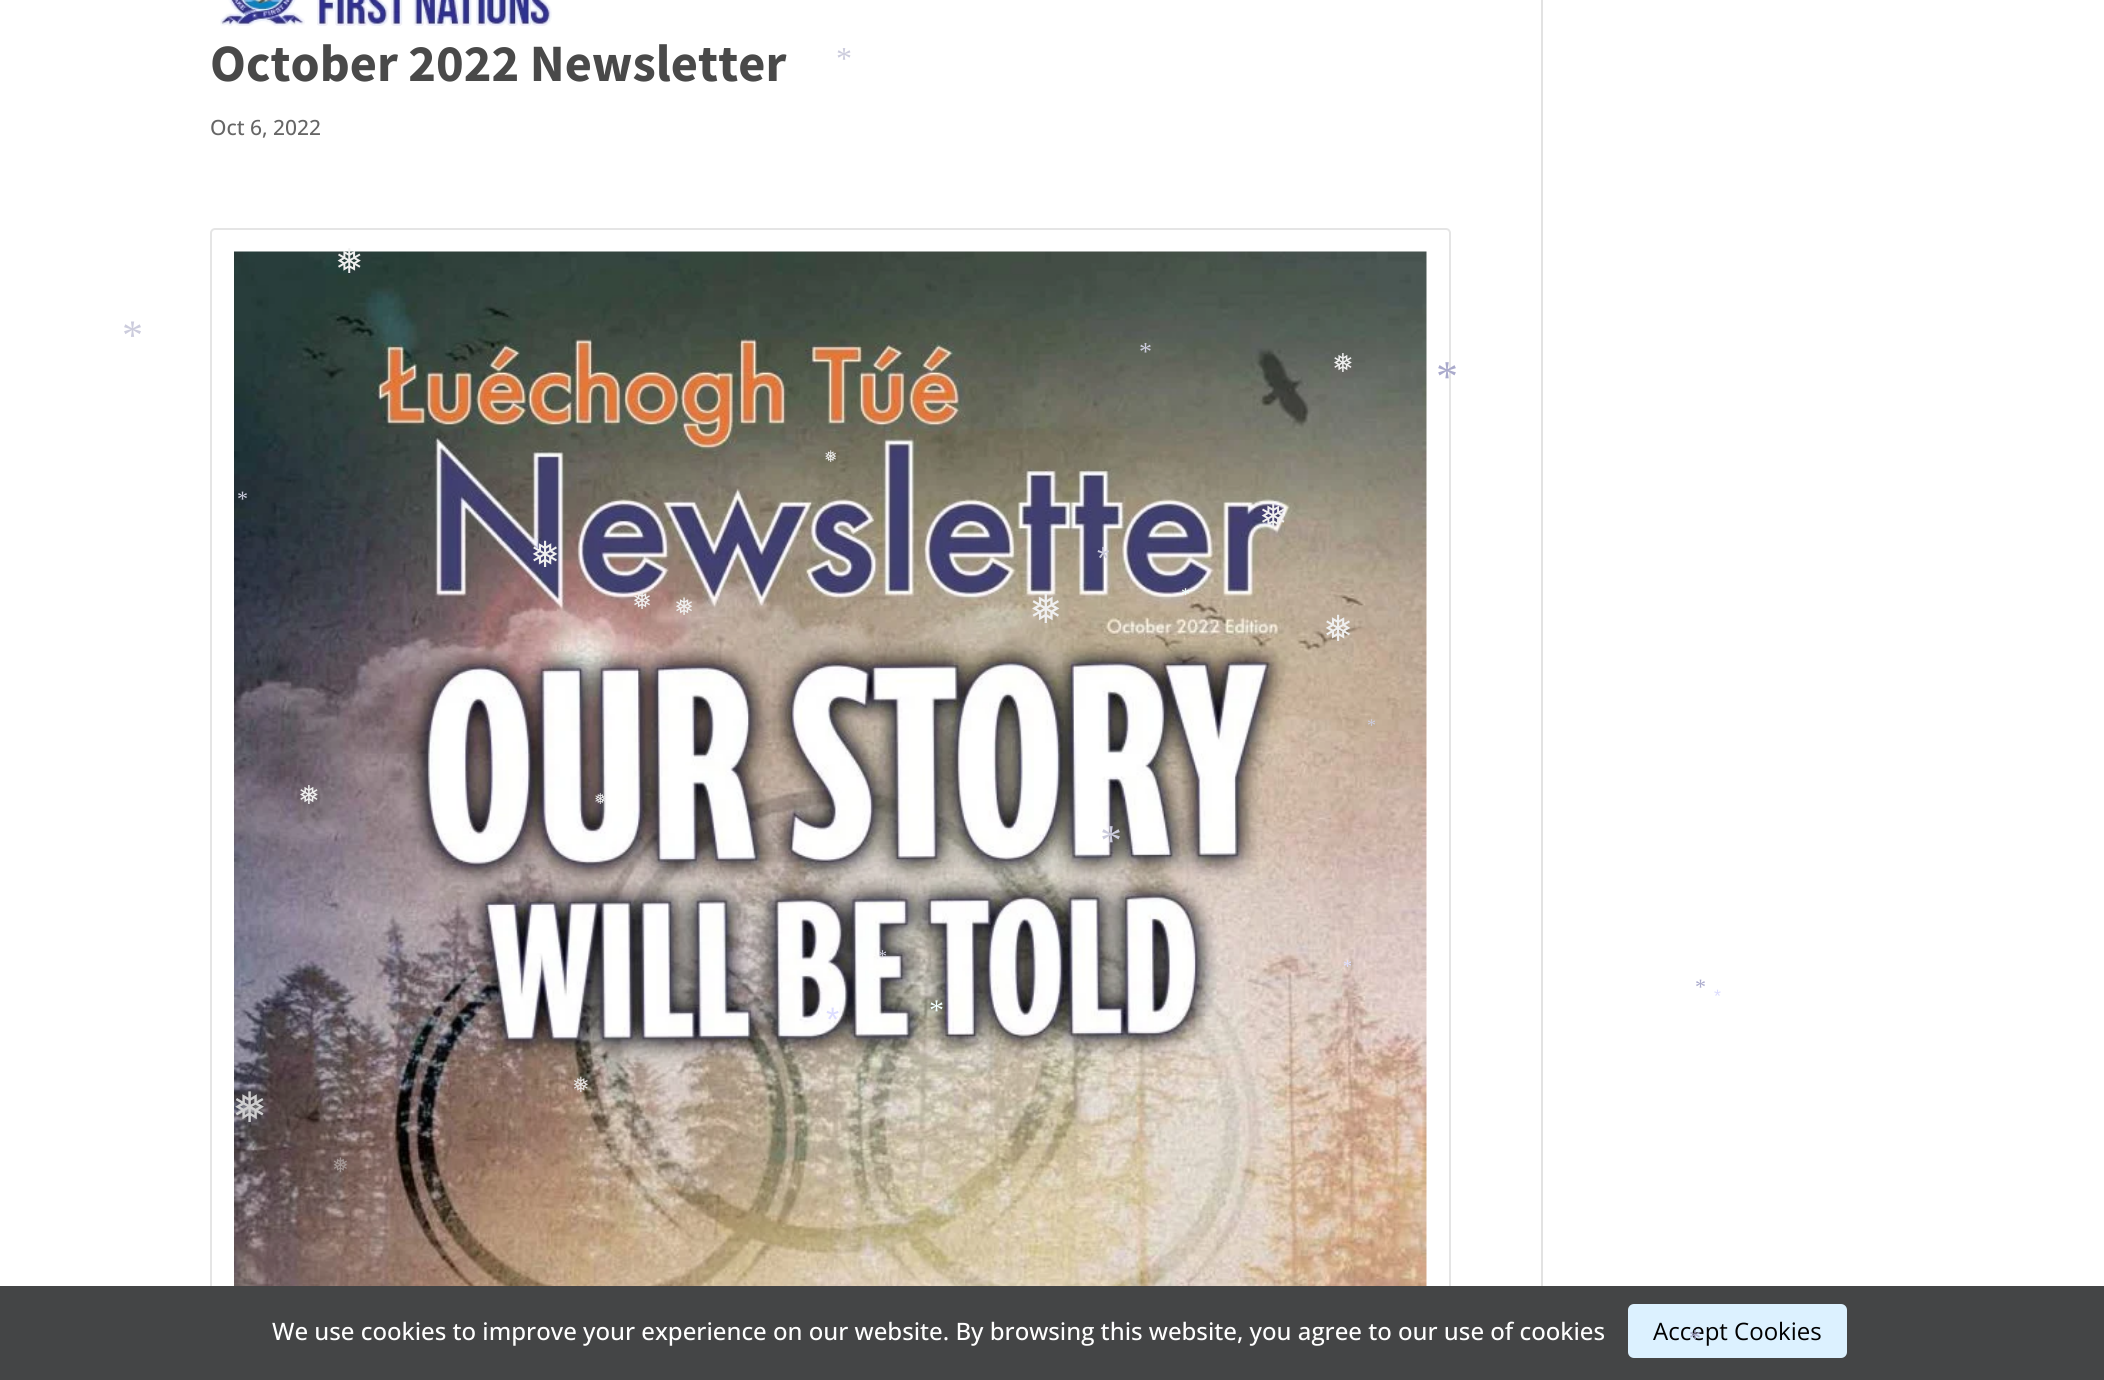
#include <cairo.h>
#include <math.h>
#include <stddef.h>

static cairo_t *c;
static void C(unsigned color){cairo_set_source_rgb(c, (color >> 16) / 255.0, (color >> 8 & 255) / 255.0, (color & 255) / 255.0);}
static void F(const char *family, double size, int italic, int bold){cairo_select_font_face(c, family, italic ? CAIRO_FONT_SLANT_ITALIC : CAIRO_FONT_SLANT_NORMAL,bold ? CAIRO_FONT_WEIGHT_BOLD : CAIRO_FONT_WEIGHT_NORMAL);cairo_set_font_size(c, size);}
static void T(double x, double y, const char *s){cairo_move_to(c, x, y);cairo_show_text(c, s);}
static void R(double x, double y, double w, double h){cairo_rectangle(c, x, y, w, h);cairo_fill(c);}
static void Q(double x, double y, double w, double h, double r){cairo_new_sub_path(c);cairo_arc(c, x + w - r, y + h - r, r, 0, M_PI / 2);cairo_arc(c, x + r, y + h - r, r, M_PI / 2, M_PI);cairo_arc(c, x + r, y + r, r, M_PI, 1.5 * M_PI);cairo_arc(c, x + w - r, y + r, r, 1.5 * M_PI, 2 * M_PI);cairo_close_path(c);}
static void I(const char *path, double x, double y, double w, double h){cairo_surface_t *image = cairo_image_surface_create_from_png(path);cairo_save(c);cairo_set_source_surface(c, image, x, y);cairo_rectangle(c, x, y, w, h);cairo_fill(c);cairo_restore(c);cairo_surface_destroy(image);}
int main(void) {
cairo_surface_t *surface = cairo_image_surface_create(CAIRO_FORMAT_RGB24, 2104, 1380);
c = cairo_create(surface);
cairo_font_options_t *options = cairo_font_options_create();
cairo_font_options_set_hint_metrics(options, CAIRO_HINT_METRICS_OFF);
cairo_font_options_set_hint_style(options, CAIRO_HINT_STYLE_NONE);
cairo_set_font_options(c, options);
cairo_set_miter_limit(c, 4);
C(0xffffff);
cairo_paint(c);
I("1.png",220,0,332,26);
F("Source Sans Pro",52.5,0,1);
C(0x494949);
T(210,81,"October 2022 Newsletter");
F("Open Sans Medium",21,0,0);
C(0x666666);
T(210,135,"Oct 6, 2022");
Q(211,229,1239,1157,4);
C(0xe5e5e5);
cairo_stroke(c);
I("2.png",234,251,1193,1035);
C(0xe2e2e2);
R(1541,0,2,1286);
F("Liberation Serif",32,0,0);
C(0xccccdd);
T(836,69,"*");
F("Liberation Serif",42,0,0);
T(122,349,"*");
F("Liberation Serif",26,0,0);
T(1139,360,"*");
F("Liberation Serif",44,0,0);
C(0xaaaacc);
T(1436,391,"*");
F("Liberation Serif",22,0,0);
C(0xccccdd);
T(237,506,"*");
F("Liberation Sans",32,0,0);
T(1097,569,"*");
F("Liberation Serif",18,0,0);
C(0xf0ffff);
T(1181,600,"*");
C(0xccccdd);
T(1367,731,"*");
F("Liberation Serif",44,0,0);
T(1100,855,"*");
F("Liberation Serif",18,0,0);
T(878,962,"*");
C(0xddddff);
T(1343,972,"*");
F("Liberation Serif",22,0,0);
C(0xaaaacc);
T(1695,994,"*");
F("Liberation Sans",18,0,0);
C(0xddddff);
T(1714,1002,"*");
F("Liberation Sans",34,0,0);
T(826,1031,"*");
F("Liberation Serif",30,0,0);
C(0xf0ffff);
T(929,1020,"*");
C(0x444546);
R(0,1286,2104,94);
C(0xdcf1ff);
Q(1628,1304,219,54,6);
cairo_fill(c);
F("Open Sans",24,0,0);
C(0x000000);
T(1653,1340,"Accept Cookies");
F("Liberation Serif",24,0,0);
C(0xaaaacc);
T(1689,1346,"*");
F("DejaVu Sans",34,0,0);
C(0xefefef);
T(335,273,"❅");
F("DejaVu Sans",26,0,0);
T(1332,372,"❅");
F("DejaVu Sans",16,0,0);
T(824,462,"❅");
F("DejaVu Sans",34,0,0);
T(1259,528,"❅");
F("DejaVu Sans",36,0,0);
T(530,567,"❅");
F("DejaVu Sans",24,0,0);
T(632,609,"❅");
T(674,615,"❅");
F("DejaVu Sans",40,0,0);
T(1029,623,"❅");
F("DejaVu Sans",36,0,0);
T(1323,641,"❅");
F("DejaVu Sans",26,0,0);
T(298,804,"❅");
F("DejaVu Sans",15,0,0);
T(594,804,"❅");
F("DejaVu Sans",21,0,0);
C(0xe6e4e3);
T(572,1092,"❅");
F("DejaVu Sans",42,0,0);
C(0xcfcecf);
T(232,1122,"❅");
F("DejaVu Sans",20,0,0);
C(0xa39795);
T(332,1172,"❅");
F("Open Sans Medium",24,0,0);
C(0xffffff);
T(272,1340,"We use cookies to improve your experience on our website. By browsing this website, you agree to our use of cookies");
cairo_surface_write_to_png(surface, "o.png");
cairo_font_options_destroy(options);
cairo_destroy(c);
cairo_surface_destroy(surface);
return 0;
}
